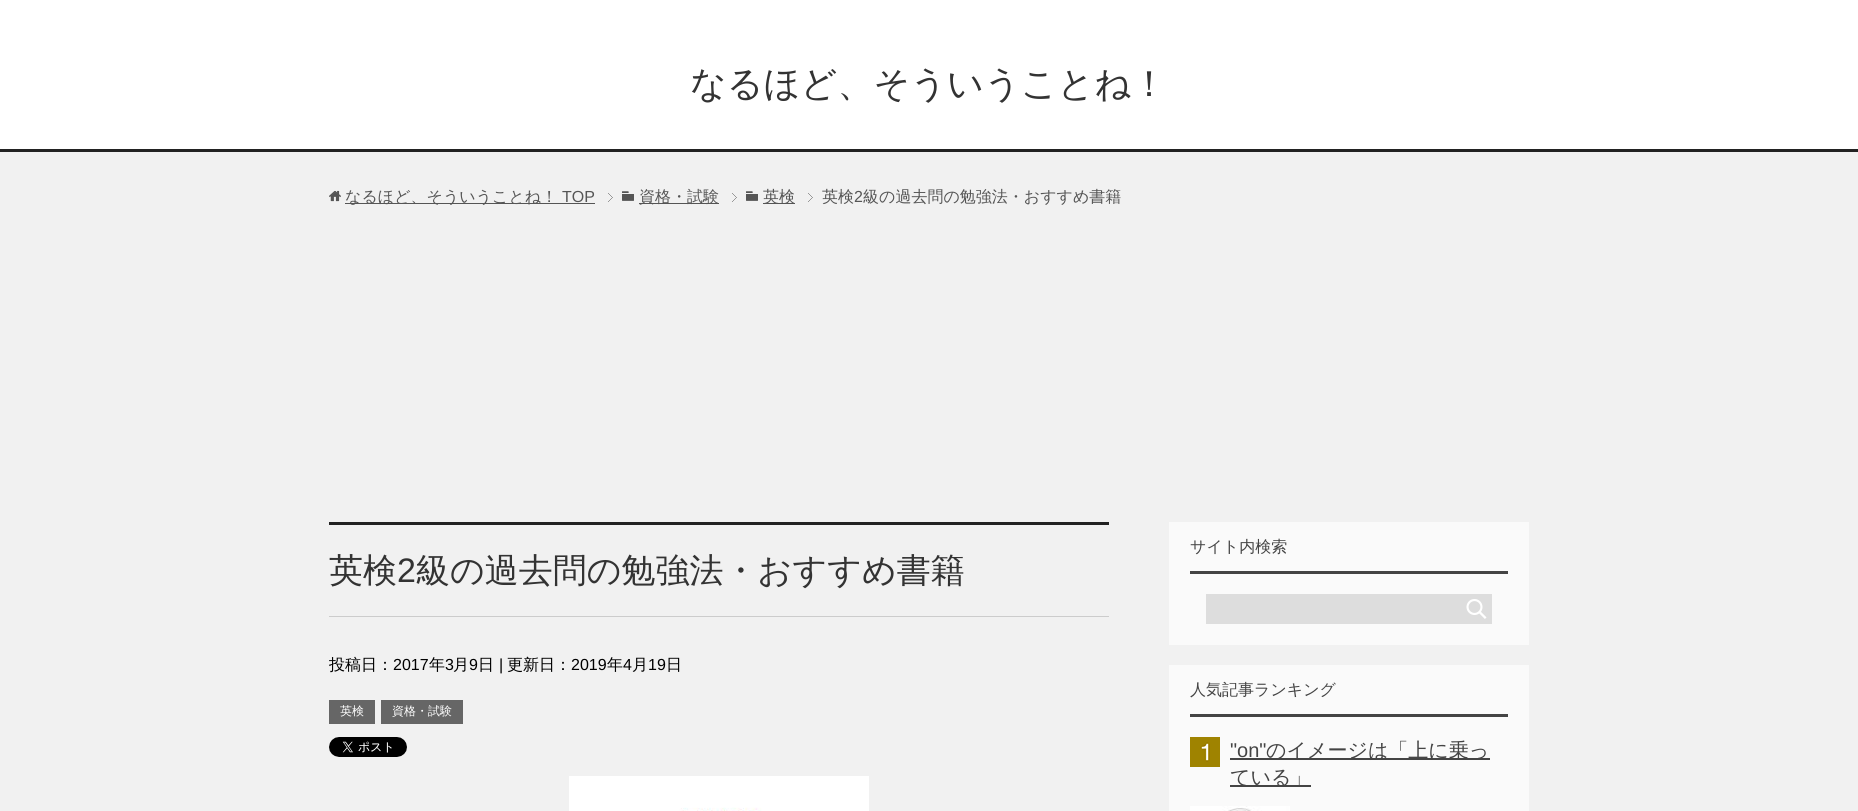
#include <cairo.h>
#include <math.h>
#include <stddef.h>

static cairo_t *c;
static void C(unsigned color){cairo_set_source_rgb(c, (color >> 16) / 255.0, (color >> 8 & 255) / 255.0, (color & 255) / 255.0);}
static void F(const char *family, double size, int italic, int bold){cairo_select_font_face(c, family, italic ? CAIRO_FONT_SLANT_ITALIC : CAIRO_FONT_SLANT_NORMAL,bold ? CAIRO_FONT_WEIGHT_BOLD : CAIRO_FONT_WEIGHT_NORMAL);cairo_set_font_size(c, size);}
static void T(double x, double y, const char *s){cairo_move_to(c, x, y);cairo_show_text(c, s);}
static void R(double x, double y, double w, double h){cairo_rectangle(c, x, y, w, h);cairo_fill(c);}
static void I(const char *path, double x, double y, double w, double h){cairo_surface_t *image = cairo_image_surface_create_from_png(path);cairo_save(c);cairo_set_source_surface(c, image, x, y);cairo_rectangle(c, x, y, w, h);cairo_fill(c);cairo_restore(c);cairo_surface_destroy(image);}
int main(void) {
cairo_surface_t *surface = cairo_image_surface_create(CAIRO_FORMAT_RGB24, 1858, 811);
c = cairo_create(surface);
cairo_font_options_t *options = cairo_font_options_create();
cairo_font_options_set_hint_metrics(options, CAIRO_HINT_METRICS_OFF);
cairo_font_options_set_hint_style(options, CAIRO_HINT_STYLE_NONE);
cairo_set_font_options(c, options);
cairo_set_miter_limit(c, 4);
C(0xf1f1f1);
cairo_paint(c);
C(0xffffff);
R(0,0,1858,149);
F("WenQuanYi Zen Hei Medium",36,0,0);
C(0x333333);
T(690,96,"なるほど、そういうことね！");
C(0x222222);
R(0,149,1858,3);
I("1.png",608,193,5,9);
I("2.png",329,190,12,12);
C(0x555555);
R(345,203,250,1);
F("WenQuanYi Zen Hei Medium",16,0,0);
T(345,202,"なるほど、そういうことね！");
F("Liberation Sans",16,0,0);
T(562,202,"TOP");
I("1.png",732,193,5,9);
I("3.png",622,191,12,10);
R(639,203,80,1);
F("WenQuanYi Zen Hei Medium",16,0,0);
T(639,202,"資格・試験");
I("1.png",808,193,5,9);
I("3.png",746,191,12,10);
R(763,203,32,1);
T(763,202,"英検");
T(822,202,"英検");
F("Liberation Sans",16,0,0);
T(854,202,"2");
F("WenQuanYi Zen Hei Medium",16,0,0);
T(863,202,"級の過去問の勉強法・おすすめ書籍");
C(0x222222);
R(329,522,780,3);
C(0xcccccc);
R(329,616,780,1);
F("WenQuanYi Zen Hei Medium",34,0,0);
C(0x333333);
T(329,582,"英検");
F("Liberation Sans",34,0,0);
T(397,582,"2");
F("WenQuanYi Zen Hei Medium",34,0,0);
T(416,582,"級の過去問の勉強法・おすすめ書籍");
F("WenQuanYi Zen Hei Medium",16,0,0);
C(0x000000);
T(329,670,"投稿日：");
F("Liberation Sans",16,0,0);
T(393,670,"2017");
F("WenQuanYi Zen Hei Medium",16,0,0);
T(429,670,"年");
F("Liberation Sans",16,0,0);
T(445,670,"3");
F("WenQuanYi Zen Hei Medium",16,0,0);
T(453,670,"月");
F("Liberation Sans",16,0,0);
T(469,670,"9");
F("WenQuanYi Zen Hei Medium",16,0,0);
T(478,670,"日");
F("Liberation Sans",16,0,0);
T(499,670,"|");
F("WenQuanYi Zen Hei Medium",16,0,0);
T(507,670,"更新日：");
F("Liberation Sans",16,0,0);
T(571,670,"2019");
F("WenQuanYi Zen Hei Medium",16,0,0);
T(607,670,"年");
F("Liberation Sans",16,0,0);
T(623,670,"4");
F("WenQuanYi Zen Hei Medium",16,0,0);
T(632,670,"月");
F("Liberation Sans",16,0,0);
T(648,670,"19");
F("WenQuanYi Zen Hei Medium",16,0,0);
T(666,670,"日");
C(0x666666);
R(329,700,46,24);
F("WenQuanYi Zen Hei Medium",12,0,0);
C(0xffffff);
T(340,715,"英検");
C(0x666666);
R(381,700,82,24);
C(0xffffff);
T(392,715,"資格・試験");
I("4.png",329,737,78,20);
I("5.png",569,776,300,35);
C(0xfafafa);
R(1169,522,360,123);
C(0x444444);
R(1190,571,318,3);
F("WenQuanYi Zen Hei Medium",16,0,0);
T(1190,552,"サイト内検索");
C(0xdddddd);
R(1206,594,286,30);
I("6.png",1466,599,21,20);
C(0xfafafa);
R(1169,665,360,146);
C(0x444444);
R(1190,714,318,3);
T(1190,695,"人気記事ランキング");
I("7.png",1190,737,30,30);
F("Liberation Sans",20,0,0);
T(1230,757,"\"on\"");
R(1230,758,260,2);
F("WenQuanYi Zen Hei Medium",20,0,0);
T(1266,757,"のイメージは「上に乗っ");
R(1230,785,81,2);
T(1230,784,"ている」");
I("8.png",1190,806,100,5);
cairo_surface_write_to_png(surface, "o.png");
cairo_font_options_destroy(options);
cairo_destroy(c);
cairo_surface_destroy(surface);
return 0;
}
